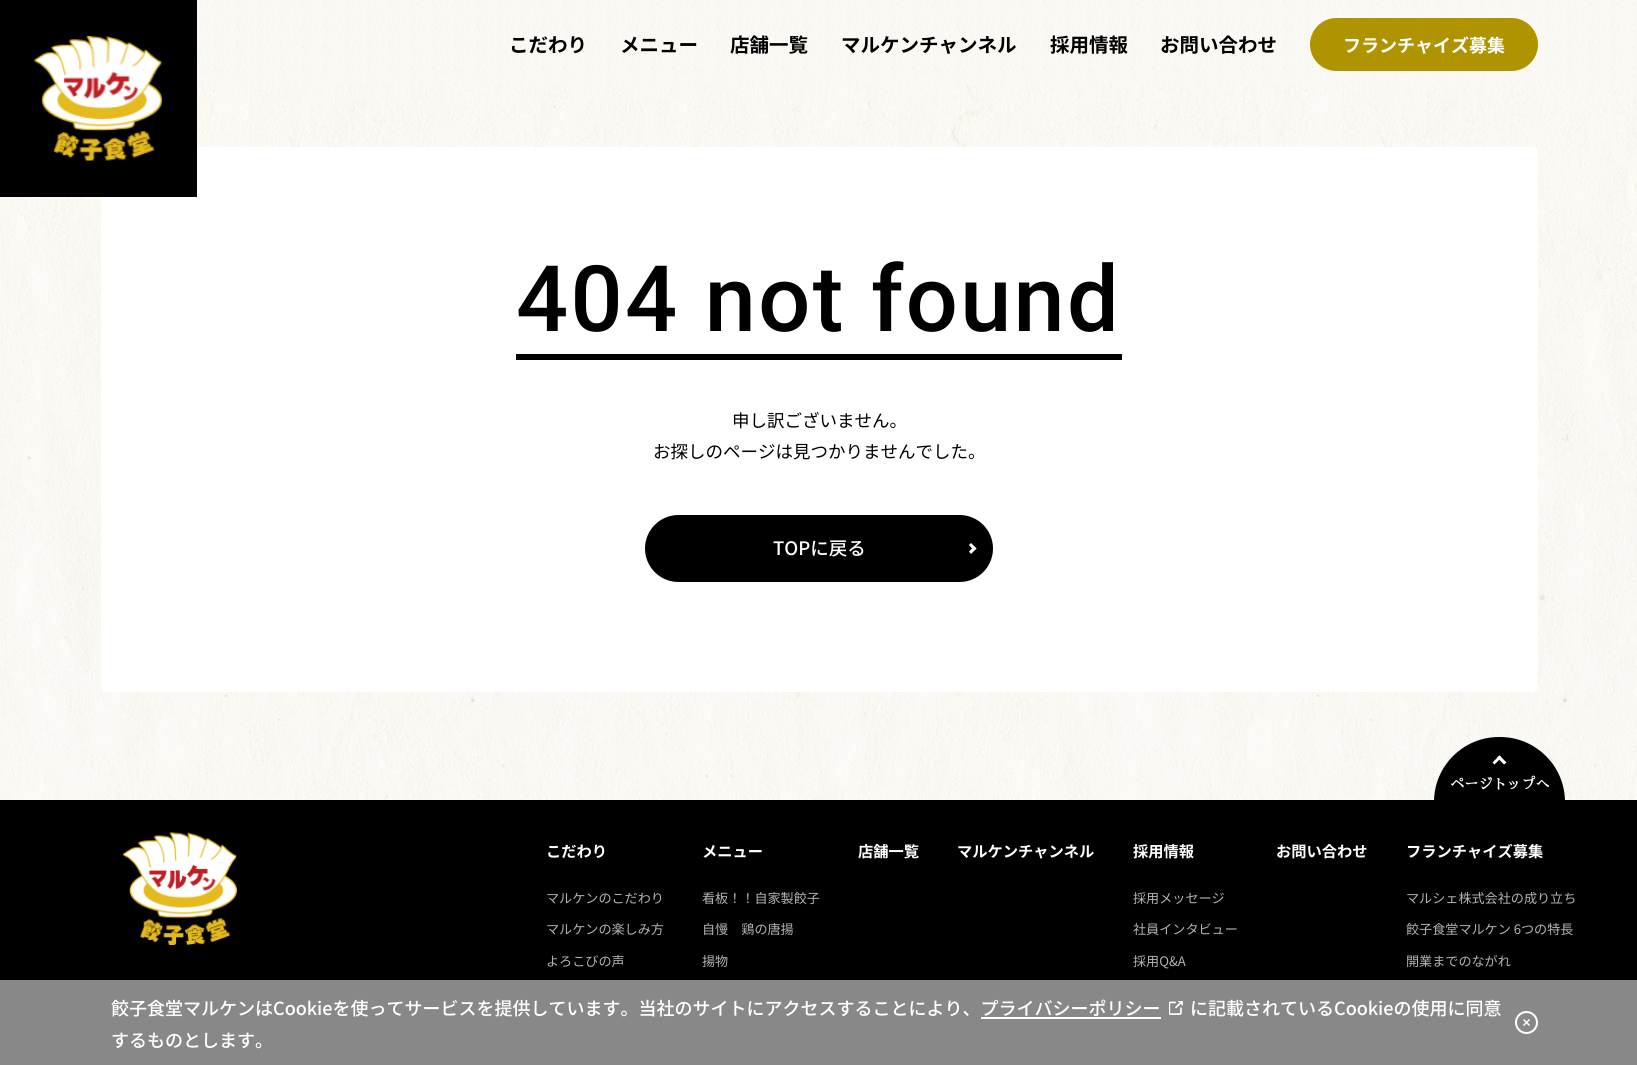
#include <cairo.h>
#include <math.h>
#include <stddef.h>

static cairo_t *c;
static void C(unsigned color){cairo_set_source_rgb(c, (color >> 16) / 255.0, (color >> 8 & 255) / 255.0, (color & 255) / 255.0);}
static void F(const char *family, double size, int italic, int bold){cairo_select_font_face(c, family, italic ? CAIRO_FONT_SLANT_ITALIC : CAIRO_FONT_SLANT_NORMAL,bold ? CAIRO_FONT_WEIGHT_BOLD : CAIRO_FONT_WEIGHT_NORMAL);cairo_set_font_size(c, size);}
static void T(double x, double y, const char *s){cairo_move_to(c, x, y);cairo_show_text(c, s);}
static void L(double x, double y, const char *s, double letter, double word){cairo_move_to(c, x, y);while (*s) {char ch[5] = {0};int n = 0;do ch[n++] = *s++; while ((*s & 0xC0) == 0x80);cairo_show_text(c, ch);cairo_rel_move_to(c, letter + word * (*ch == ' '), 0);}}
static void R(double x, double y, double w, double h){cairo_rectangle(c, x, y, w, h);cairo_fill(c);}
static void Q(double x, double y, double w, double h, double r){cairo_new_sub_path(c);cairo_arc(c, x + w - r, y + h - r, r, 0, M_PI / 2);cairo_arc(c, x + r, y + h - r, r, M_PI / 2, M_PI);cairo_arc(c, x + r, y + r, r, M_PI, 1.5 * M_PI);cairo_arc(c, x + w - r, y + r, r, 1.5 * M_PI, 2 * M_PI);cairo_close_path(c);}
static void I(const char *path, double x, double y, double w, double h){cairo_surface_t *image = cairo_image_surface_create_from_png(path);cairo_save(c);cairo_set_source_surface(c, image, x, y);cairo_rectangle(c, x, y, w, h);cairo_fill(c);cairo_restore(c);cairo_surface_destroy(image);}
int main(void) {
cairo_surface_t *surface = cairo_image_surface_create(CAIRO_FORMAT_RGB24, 1637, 1065);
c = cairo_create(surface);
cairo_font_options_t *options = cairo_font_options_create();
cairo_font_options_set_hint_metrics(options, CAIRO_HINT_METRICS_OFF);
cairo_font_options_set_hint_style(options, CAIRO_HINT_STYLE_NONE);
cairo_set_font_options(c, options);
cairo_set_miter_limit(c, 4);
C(0xffffff);
cairo_paint(c);
I("1.png",0,85,1637,715);
I("2.png",197,0,1440,86);
C(0xffffff);
Q(101,147,1437,545,5);
cairo_fill(c);
C(0x000000);
R(0,0,197,197);
I("3.png",34,36,128,125);
F("Noto Sans JP",19.5,0,1);
T(509,52,"こだわり");
T(620,52,"メニュー");
T(730,52,"店舗一覧");
T(841,52,"マルケンチャンネル");
T(1050,52,"採用情報");
T(1160,52,"お問い合わせ");
C(0xaf9400);
Q(1310,18,228,53,26.5);
cairo_fill(c);
F("Noto Sans JP",18,0,1);
C(0xffffff);
T(1343,52,"フランチャイズ募集");
F("Roboto Medium",91.75,0,0);
C(0x000000);
L(516,331,"404 not found",2.4,0);
R(516,354,606,6);
F("Noto Sans JP",17.5,0,0);
T(732,427,"申し訳ございません。");
T(653,458,"お探しのページは見つかりませんでした。");
Q(646,516,346,65,32.5);
cairo_fill_preserve(c);
cairo_stroke(c);
F("Noto Sans JP Medium",18.5,0,0);
C(0xffffff);
T(773,555,"TOPに戻る");
cairo_new_path(c);
cairo_move_to(c,971,543);
cairo_line_to(c,976.5,548.5);
cairo_line_to(c,974,550.5);
cairo_line_to(c,969,545);
cairo_close_path(c);
cairo_fill(c);
cairo_new_path(c);
cairo_move_to(c,974,546.5);
cairo_line_to(c,976.5,548.5);
cairo_line_to(c,971,554);
cairo_line_to(c,969,551.5);
cairo_close_path(c);
cairo_fill(c);
C(0x000000);
R(0,800,1637,180);
cairo_save(c);
Q(1434,737,131,130,65);
cairo_clip(c);
cairo_new_path(c);
cairo_move_to(c,1499,737);
cairo_line_to(c,1500,737);
cairo_curve_to(c,1536,737,1565,766,1565,802);
cairo_line_to(c,1565,803);
cairo_line_to(c,1434,803);
cairo_line_to(c,1434,802);
cairo_curve_to(c,1434,766,1463,737,1499,737);
cairo_close_path(c);
cairo_fill(c);
cairo_restore(c);
C(0xffffff);
cairo_new_path(c);
cairo_move_to(c,1492.5,762.5);
cairo_line_to(c,1499.5,755.5);
cairo_line_to(c,1501.5,757.5);
cairo_line_to(c,1494.5,764.5);
cairo_close_path(c);
cairo_fill(c);
cairo_new_path(c);
cairo_move_to(c,1497,757.5);
cairo_line_to(c,1499.5,755.5);
cairo_line_to(c,1506.5,762.5);
cairo_line_to(c,1504,764.5);
cairo_close_path(c);
cairo_fill(c);
F("Sawarabi Mincho",14.25,0,1);
T(1450,789,"ページトップへ");
I("4.png",123,832,114,113);
F("Noto Sans JP",15.25,0,1);
T(546,857,"こだわり");
F("Noto Sans JP",13.1,0,0);
C(0xb3b3b3);
T(546,903,"マルケンのこだわり");
T(546,934,"マルケンの楽しみ方");
T(546,966,"よろこびの声");
F("Noto Sans JP",15.25,0,1);
C(0xffffff);
T(702,857,"メニュー");
F("Noto Sans JP",13.1,0,0);
C(0xb3b3b3);
T(702,903,"看板！！自家製餃子");
T(702,934,"自慢　鶏の唐揚");
T(702,966,"揚物");
F("Noto Sans JP",15.25,0,1);
C(0xffffff);
T(858,857,"店舗一覧");
T(957,857,"マルケンチャンネル");
T(1133,857,"採用情報");
F("Noto Sans JP",13.1,0,0);
C(0xb3b3b3);
T(1133,903,"採用メッセージ");
T(1133,934,"社員インタビュー");
T(1133,966,"採用Q&A");
F("Noto Sans JP",15.25,0,1);
C(0xffffff);
T(1276,857,"お問い合わせ");
T(1406,857,"フランチャイズ募集");
F("Noto Sans JP",13.1,0,0);
C(0xb3b3b3);
T(1406,903,"マルシェ株式会社の成り立ち");
T(1406,934,"餃子食堂マルケン 6つの特長");
T(1406,966,"開業までのながれ");
C(0x888888);
R(0,980,1637,85);
F("Noto Sans JP Medium",18,0,0);
C(0xffffff);
T(111,1015,"餃子食堂マルケンはCookieを使ってサービスを提供しています。当社のサイトにアクセスすることにより、プライバシーポリシー");
T(1190,1015,"に記載されているCookieの使用に同意");
I("5.png",1169,1001,14,14);
R(981,1017,180,2);
T(111,1047,"するものとします。");
cairo_new_path(c);
cairo_arc(c,1526.5,1022.5,10.5,0,2 * M_PI);
cairo_stroke(c);
cairo_new_path(c);
cairo_move_to(c,1523,1020);
cairo_line_to(c,1524,1019);
cairo_line_to(c,1530,1025);
cairo_line_to(c,1529,1026);
cairo_close_path(c);
cairo_fill(c);
cairo_new_path(c);
cairo_move_to(c,1529,1019);
cairo_line_to(c,1530,1020);
cairo_line_to(c,1524,1026);
cairo_line_to(c,1523,1025);
cairo_close_path(c);
cairo_fill(c);
cairo_surface_write_to_png(surface, "o.png");
cairo_font_options_destroy(options);
cairo_destroy(c);
cairo_surface_destroy(surface);
return 0;
}
